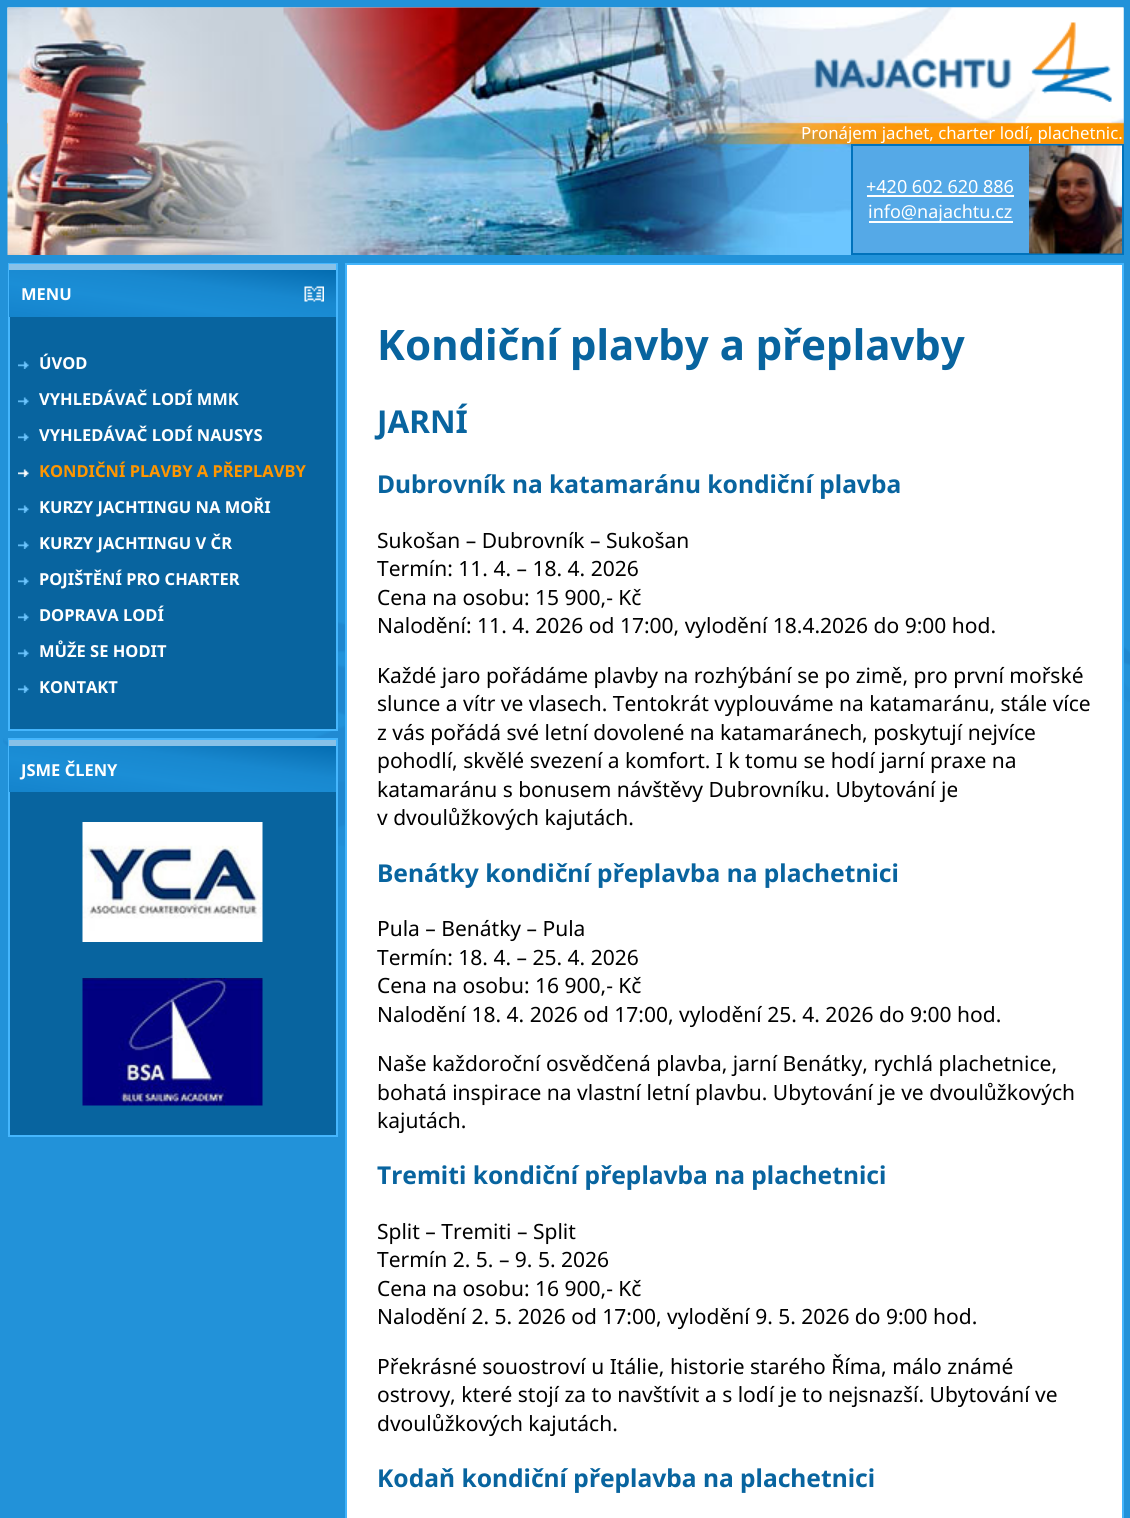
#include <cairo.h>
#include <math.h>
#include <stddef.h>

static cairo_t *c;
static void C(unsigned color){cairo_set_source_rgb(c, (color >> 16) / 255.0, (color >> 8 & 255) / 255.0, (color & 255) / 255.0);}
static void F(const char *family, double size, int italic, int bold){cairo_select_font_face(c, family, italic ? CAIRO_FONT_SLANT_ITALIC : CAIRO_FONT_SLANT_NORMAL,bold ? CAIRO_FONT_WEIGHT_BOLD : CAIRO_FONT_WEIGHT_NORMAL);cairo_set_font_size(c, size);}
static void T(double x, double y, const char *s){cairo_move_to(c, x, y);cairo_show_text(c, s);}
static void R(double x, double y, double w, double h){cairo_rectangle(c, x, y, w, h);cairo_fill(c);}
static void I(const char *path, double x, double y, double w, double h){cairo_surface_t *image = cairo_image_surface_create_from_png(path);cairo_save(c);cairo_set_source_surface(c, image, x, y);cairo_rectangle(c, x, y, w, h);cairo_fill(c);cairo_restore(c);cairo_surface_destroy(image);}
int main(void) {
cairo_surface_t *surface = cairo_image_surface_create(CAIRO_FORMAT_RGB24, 1130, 1518);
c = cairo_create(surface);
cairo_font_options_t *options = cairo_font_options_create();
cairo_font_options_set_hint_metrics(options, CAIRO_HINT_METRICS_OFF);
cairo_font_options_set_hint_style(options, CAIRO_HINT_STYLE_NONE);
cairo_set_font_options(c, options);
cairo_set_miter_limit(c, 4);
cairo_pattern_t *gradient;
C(0x2292d9);
cairo_paint(c);
I("1.png",3,620,1127,228);
I("2.png",7,7,1117,248);
I("3.png",814,22,298,80);
F("Noto Sans",16.75,0,0);
C(0xffffff);
T(801,139,"Pronájem jachet, charter lodí, plachetnic.");
C(0x55a9e7);
R(853,146,176,107);
cairo_rectangle(c,852,145,271,109);
C(0x0072bc);
cairo_stroke(c);
F("Noto Sans",18,0,0);
C(0xffffff);
T(866,193,"+420 602 620 886");
R(867,195,147,2);
R(869,221,144,2);
T(868,218,"info@najachtu.cz");
I("4.png",1029,145,93,109);
C(0x08649f);
R(10,317,326,412);
cairo_rectangle(c,9,264,328,466);
C(0x45b6fd);
cairo_stroke(c);
gradient = cairo_pattern_create_linear(166,339,179,248);
cairo_pattern_add_color_stop_rgba(gradient,0,0.078,0.518,0.8,1);
cairo_pattern_add_color_stop_rgba(gradient,.09,0.086,0.525,0.812,1);
cairo_pattern_add_color_stop_rgba(gradient,.18,0.094,0.537,0.82,1);
cairo_pattern_add_color_stop_rgba(gradient,.27,0.098,0.545,0.831,1);
cairo_pattern_add_color_stop_rgba(gradient,.36,0.106,0.557,0.839,1);
cairo_pattern_add_color_stop_rgba(gradient,.45,0.102,0.549,0.831,1);
cairo_pattern_add_color_stop_rgba(gradient,.55,0.098,0.541,0.82,1);
cairo_pattern_add_color_stop_rgba(gradient,.64,0.094,0.533,0.812,1);
cairo_pattern_add_color_stop_rgba(gradient,.73,0.078,0.506,0.78,1);
cairo_pattern_add_color_stop_rgba(gradient,.82,0.059,0.478,0.749,1);
cairo_pattern_add_color_stop_rgba(gradient,.91,0.035,0.451,0.722,1);
cairo_pattern_add_color_stop_rgba(gradient,1,0.012,0.424,0.69,1);
cairo_set_source(c,gradient);
cairo_pattern_destroy(gradient);
R(9,270,327,47);
C(0x88c1e7);
R(9,264,327,6);
F("Noto Sans",16.5,0,1);
C(0xffffff);
T(21,300,"MENU");
I("5.png",304,286,20,16);
I("6.png",18,361,11,8);
T(39,369,"ÚVOD");
I("6.png",18,397,11,8);
T(39,405,"VYHLEDÁVAČ LODÍ MMK");
I("6.png",18,433,11,8);
T(39,441,"VYHLEDÁVAČ LODÍ NAUSYS");
I("7.png",18,469,11,8);
C(0xff9600);
T(39,477,"KONDIČNÍ PLAVBY A PŘEPLAVBY");
I("6.png",18,505,11,8);
C(0xffffff);
T(39,513,"KURZY JACHTINGU NA MOŘI");
I("6.png",18,541,11,8);
T(39,549,"KURZY JACHTINGU V ČR");
I("6.png",18,577,11,8);
T(39,585,"POJIŠTĚNÍ PRO CHARTER");
I("6.png",18,613,11,8);
T(39,621,"DOPRAVA LODÍ");
I("6.png",18,649,11,8);
T(39,657,"MŮŽE SE HODIT");
I("6.png",18,685,11,8);
T(39,693,"KONTAKT");
C(0x08649f);
R(10,792,326,343);
cairo_rectangle(c,9,739,328,397);
C(0x45b6fd);
cairo_stroke(c);
gradient = cairo_pattern_create_linear(166,814,179,723);
cairo_pattern_add_color_stop_rgba(gradient,0,0.078,0.518,0.8,1);
cairo_pattern_add_color_stop_rgba(gradient,.09,0.086,0.525,0.812,1);
cairo_pattern_add_color_stop_rgba(gradient,.18,0.094,0.537,0.82,1);
cairo_pattern_add_color_stop_rgba(gradient,.27,0.098,0.545,0.831,1);
cairo_pattern_add_color_stop_rgba(gradient,.36,0.106,0.557,0.839,1);
cairo_pattern_add_color_stop_rgba(gradient,.45,0.102,0.549,0.831,1);
cairo_pattern_add_color_stop_rgba(gradient,.55,0.098,0.541,0.82,1);
cairo_pattern_add_color_stop_rgba(gradient,.64,0.094,0.533,0.812,1);
cairo_pattern_add_color_stop_rgba(gradient,.73,0.078,0.506,0.78,1);
cairo_pattern_add_color_stop_rgba(gradient,.82,0.059,0.478,0.749,1);
cairo_pattern_add_color_stop_rgba(gradient,.91,0.035,0.451,0.722,1);
cairo_pattern_add_color_stop_rgba(gradient,1,0.012,0.424,0.69,1);
cairo_set_source(c,gradient);
cairo_pattern_destroy(gradient);
R(9,746,327,46);
C(0x88c1e7);
R(9,740,327,6);
C(0xffffff);
T(21,776,"JSME ČLENY");
I("8.png",82,822,181,120);
I("9.png",82,978,181,128);
cairo_rectangle(c,346,264,777,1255);
cairo_fill_preserve(c);
C(0x43b4fb);
cairo_stroke(c);
F("Noto Sans",42,0,1);
C(0x08649f);
T(377,360,"Kondiční plavby a přeplavby");
F("Noto Sans",31.5,0,1);
T(377,433,"JARNÍ");
F("Noto Sans",24.6,0,1);
T(377,493,"Dubrovník na katamaránu kondiční plavba");
F("Noto Sans",21,0,0);
C(0x000000);
T(377,548,"Sukošan – Dubrovník – Sukošan");
T(377,576,"Termín: 11. 4. – 18. 4. 2026");
T(377,605,"Cena na osobu: 15 900,- Kč");
T(377,633,"Nalodění: 11. 4. 2026 od 17:00, vylodění 18.4.2026 do 9:00 hod.");
T(377,683,"Každé jaro pořádáme plavby na rozhýbání se po zimě, pro první mořské");
T(377,711,"slunce a vítr ve vlasech. Tentokrát vyplouváme na katamaránu, stále více");
T(377,740,"z vás pořádá své letní dovolené na katamaránech, poskytují nejvíce");
T(377,768,"pohodlí, skvělé svezení a komfort. I k tomu se hodí jarní praxe na");
T(377,797,"katamaránu s bonusem návštěvy Dubrovníku. Ubytování je");
T(377,825,"v dvoulůžkových kajutách.");
F("Noto Sans",24.6,0,1);
C(0x08649f);
T(377,882,"Benátky kondiční přeplavba na plachetnici");
F("Noto Sans",21,0,0);
C(0x000000);
T(377,936,"Pula – Benátky – Pula");
T(377,965,"Termín: 18. 4. – 25. 4. 2026");
T(377,993,"Cena na osobu: 16 900,- Kč");
T(377,1022,"Nalodění 18. 4. 2026 od 17:00, vylodění 25. 4. 2026 do 9:00 hod.");
T(377,1071,"Naše každoroční osvědčená plavba, jarní Benátky, rychlá plachetnice,");
T(377,1100,"bohatá inspirace na vlastní letní plavbu. Ubytování je ve dvoulůžkových");
T(377,1128,"kajutách.");
F("Noto Sans",24.6,0,1);
C(0x08649f);
T(377,1184,"Tremiti kondiční přeplavba na plachetnici");
F("Noto Sans",21,0,0);
C(0x000000);
T(377,1239,"Split – Tremiti – Split");
T(377,1267,"Termín 2. 5. – 9. 5. 2026");
T(377,1296,"Cena na osobu: 16 900,- Kč");
T(377,1324,"Nalodění 2. 5. 2026 od 17:00, vylodění 9. 5. 2026 do 9:00 hod.");
T(377,1374,"Překrásné souostroví u Itálie, historie starého Říma, málo známé");
T(377,1402,"ostrovy, které stojí za to navštívit a s lodí je to nejsnazší. Ubytování ve");
T(377,1431,"dvoulůžkových kajutách.");
F("Noto Sans",24.6,0,1);
C(0x08649f);
T(377,1487,"Kodaň kondiční přeplavba na plachetnici");
cairo_surface_write_to_png(surface, "o.png");
cairo_font_options_destroy(options);
cairo_destroy(c);
cairo_surface_destroy(surface);
return 0;
}
